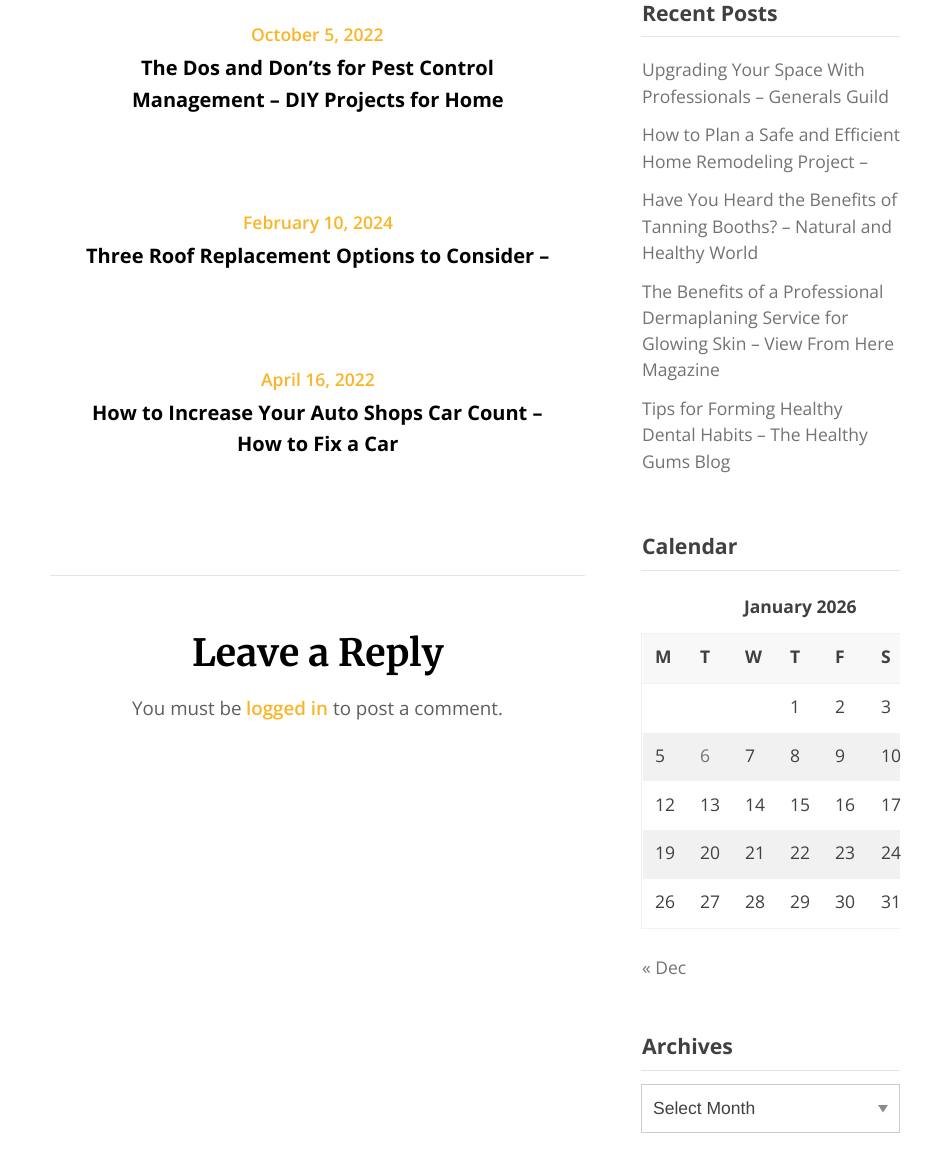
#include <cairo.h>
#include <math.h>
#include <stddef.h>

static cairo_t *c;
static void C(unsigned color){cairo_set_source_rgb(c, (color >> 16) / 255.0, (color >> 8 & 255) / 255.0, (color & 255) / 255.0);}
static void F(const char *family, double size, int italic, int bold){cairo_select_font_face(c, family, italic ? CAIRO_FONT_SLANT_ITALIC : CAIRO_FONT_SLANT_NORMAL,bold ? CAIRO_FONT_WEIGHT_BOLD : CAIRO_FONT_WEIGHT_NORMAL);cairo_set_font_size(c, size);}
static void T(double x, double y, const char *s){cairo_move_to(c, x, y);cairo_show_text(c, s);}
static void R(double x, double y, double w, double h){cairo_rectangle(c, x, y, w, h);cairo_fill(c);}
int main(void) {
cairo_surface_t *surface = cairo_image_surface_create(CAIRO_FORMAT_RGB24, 949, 1168);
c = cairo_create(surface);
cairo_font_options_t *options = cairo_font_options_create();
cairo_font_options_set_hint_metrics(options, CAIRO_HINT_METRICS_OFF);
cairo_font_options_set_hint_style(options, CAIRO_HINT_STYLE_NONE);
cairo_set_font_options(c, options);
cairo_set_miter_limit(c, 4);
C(0xffffff);
cairo_paint(c);
F("Open Sans SemiBold",17.5,0,0);
C(0xfab526);
T(251,41,"October 5, 2022");
F("Open Sans",20,0,1);
C(0x000000);
T(141,75,"The Dos and Don’ts for Pest Control");
T(132,107,"Management – DIY Projects for Home");
F("Open Sans SemiBold",17.5,0,0);
C(0xfab526);
T(243,229,"February 10, 2024");
F("Open Sans",20,0,1);
C(0x000000);
T(86,263,"Three Roof Replacement Options to Consider –");
F("Open Sans SemiBold",17.5,0,0);
C(0xfab526);
T(261,386,"April 16, 2022");
F("Open Sans",20,0,1);
C(0x000000);
T(92,420,"How to Increase Your Auto Shops Car Count –");
T(237,451,"How to Fix a Car");
C(0xe6e6e6);
R(50,575,535,1);
F("Merriweather",37.5,0,1);
C(0x000000);
T(192,666,"Leave a Reply");
F("Open Sans",18.75,0,0);
C(0x5d5d5d);
T(132,715,"You must be");
F("Open Sans SemiBold",18.75,0,0);
C(0xfab526);
T(246,715,"logged in");
F("Open Sans",18.75,0,0);
C(0x5d5d5d);
T(333,715,"to post a comment.");
C(0xe4e4e4);
R(641,36,259,1);
F("Open Sans",21.25,0,1);
C(0x404040);
T(642,21,"Recent Posts");
F("Open Sans",17.5,0,0);
C(0x727272);
T(642,76,"Upgrading Your Space With");
T(642,103,"Professionals – Generals Guild");
T(642,141,"How to Plan a Safe and Efficient");
T(642,168,"Home Remodeling Project –");
T(642,206,"Have You Heard the Benefits of");
T(642,233,"Tanning Booths? – Natural and");
T(642,259,"Healthy World");
T(642,298,"The Benefits of a Professional");
T(642,324,"Dermaplaning Service for");
T(642,350,"Glowing Skin – View From Here");
T(642,376,"Magazine");
T(642,415,"Tips for Forming Healthy");
T(642,441,"Dental Habits – The Healthy");
T(642,468,"Gums Blog");
C(0xe4e4e4);
R(641,570,259,1);
F("Open Sans",21.25,0,1);
C(0x404040);
T(642,554,"Calendar");
F("Open Sans",17.5,0,1);
T(744,613,"January 2026");
C(0xf8f8f8);
R(643,634,257,49);
C(0xf1f1f1);
R(641,633,259,1);
R(641,683,259,1);
R(641,928,259,1);
R(641,683,1,246);
R(641,633,1,51);
C(0x404040);
T(655,663,"M");
T(700,663,"T");
T(745,663,"W");
T(790,663,"T");
T(835,663,"F");
T(881,663,"S");
F("Open Sans",17.5,0,0);
T(790,713,"1");
T(835,713,"2");
T(881,713,"3");
C(0xf1f1f1);
R(643,733,257,48);
C(0x404040);
T(655,762,"5");
C(0x727272);
T(700,762,"6");
C(0x404040);
T(745,762,"7");
T(790,762,"8");
T(835,762,"9");
T(881,762,"10");
T(655,811,"12");
T(700,811,"13");
T(745,811,"14");
T(790,811,"15");
T(835,811,"16");
T(881,811,"17");
C(0xf1f1f1);
R(643,830,257,49);
C(0x404040);
T(655,859,"19");
T(700,859,"20");
T(745,859,"21");
T(790,859,"22");
T(835,859,"23");
T(881,859,"24");
T(655,908,"26");
T(700,908,"27");
T(745,908,"28");
T(790,908,"29");
T(835,908,"30");
T(881,908,"31");
C(0x727272);
T(642,974,"« Dec");
C(0xe4e4e4);
R(641,1070,259,1);
F("Open Sans",21.25,0,1);
C(0x404040);
T(642,1054,"Archives");
C(0x8a8a8a);
cairo_new_path(c);
cairo_move_to(c,878,1105);
cairo_line_to(c,888,1105);
cairo_line_to(c,883,1112.5);
cairo_close_path(c);
cairo_fill(c);
cairo_rectangle(c,641.5,1084.5,258,48);
C(0xcccccc);
cairo_set_line_width(c,1);
cairo_stroke(c);
F("Liberation Sans",17.5,0,0);
C(0x404040);
T(653,1114,"Select Month");
cairo_surface_write_to_png(surface, "o.png");
cairo_font_options_destroy(options);
cairo_destroy(c);
cairo_surface_destroy(surface);
return 0;
}
